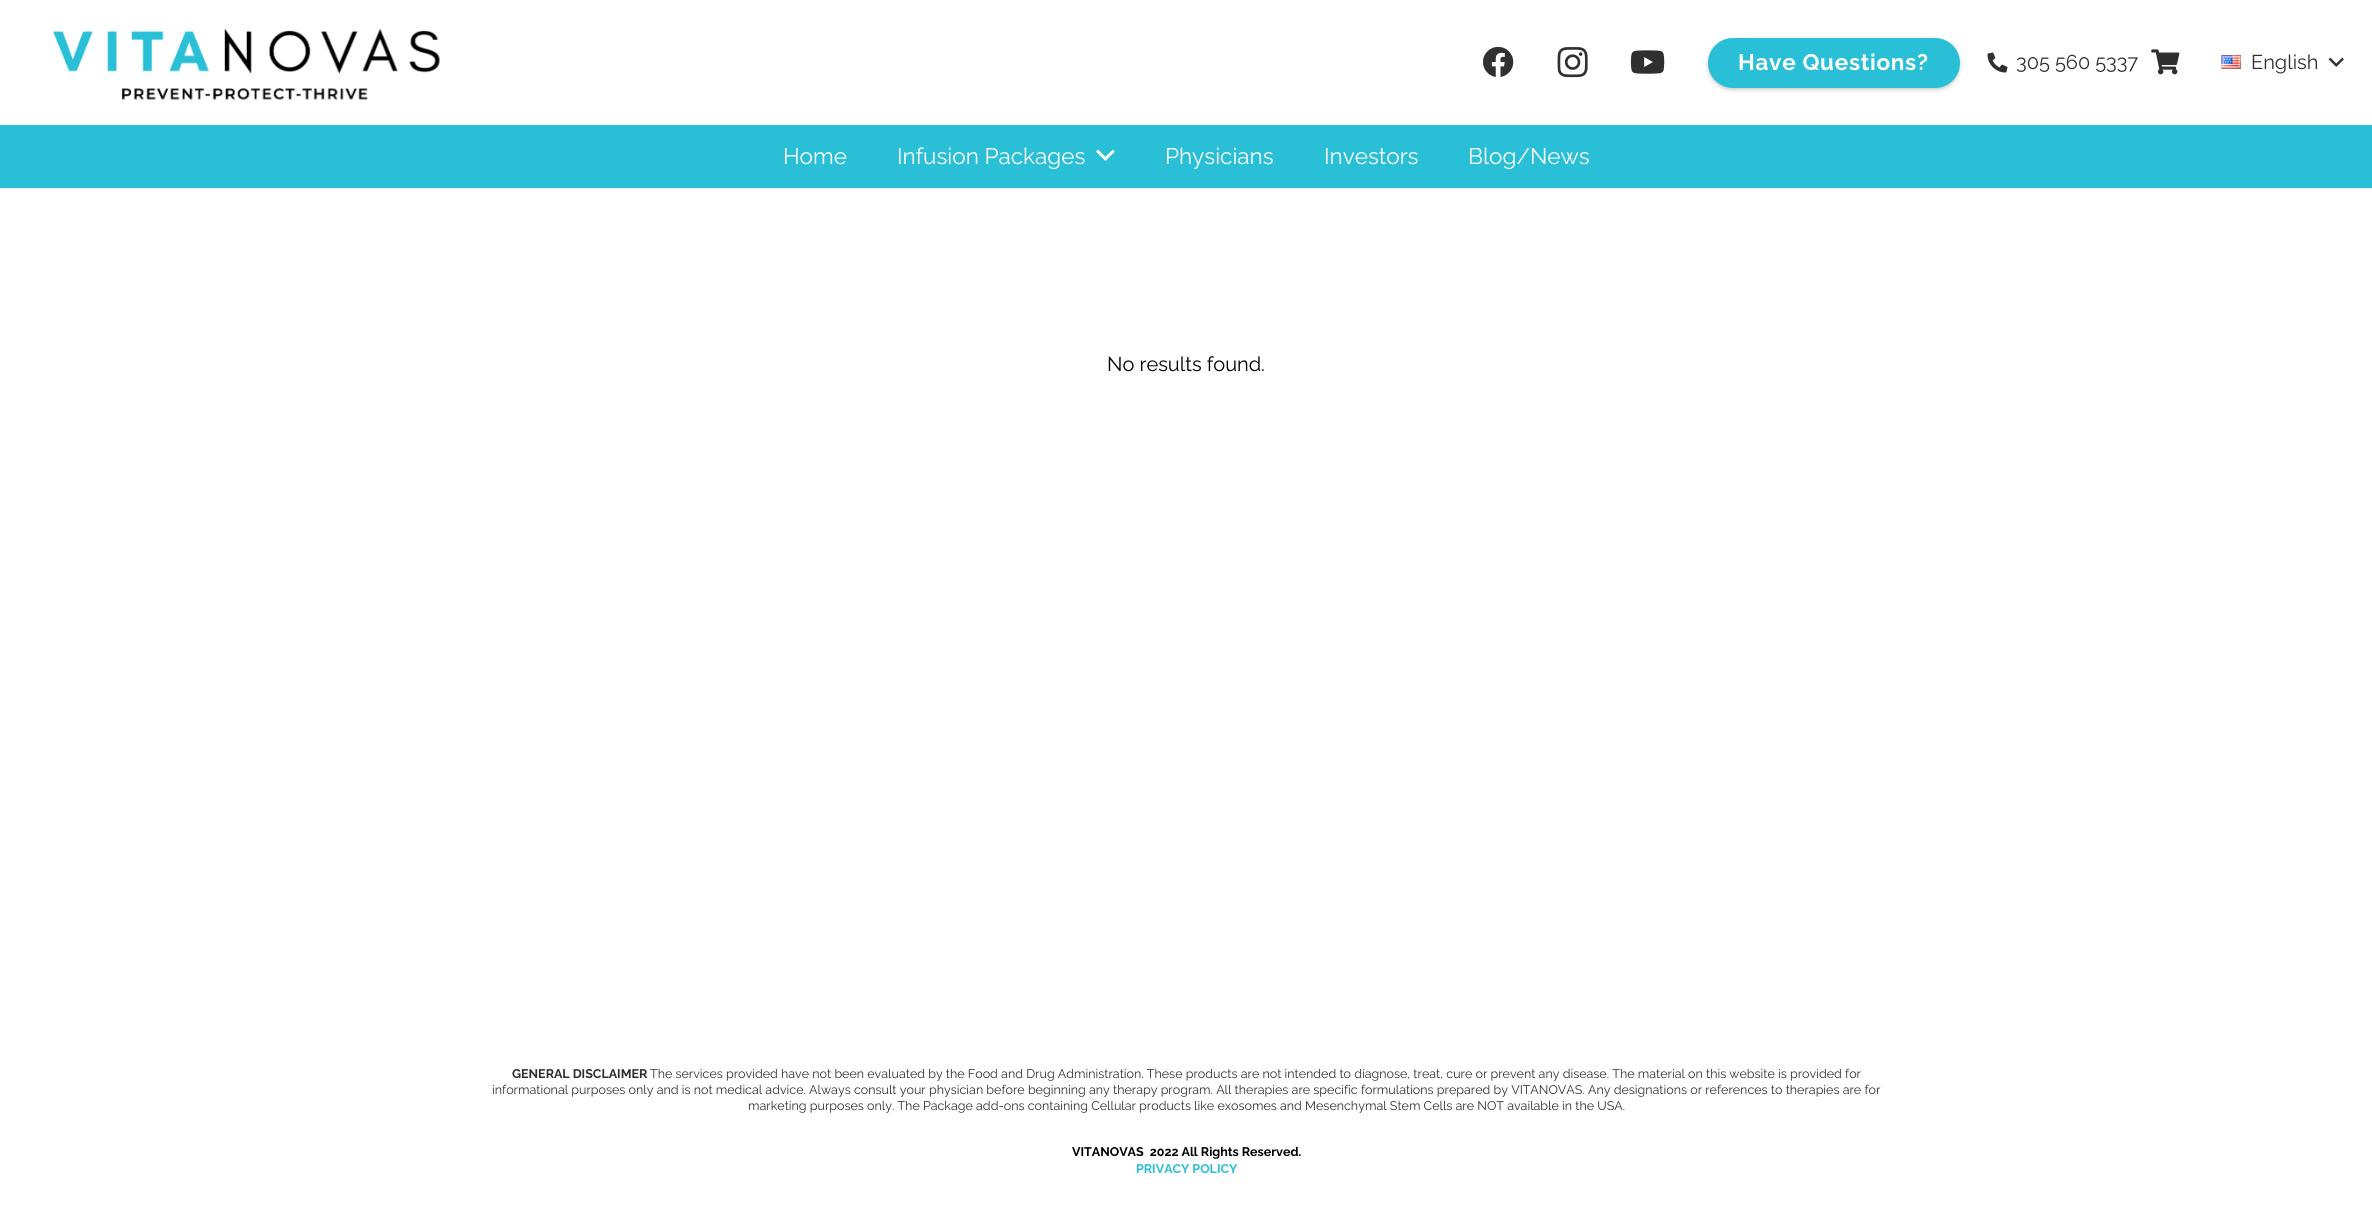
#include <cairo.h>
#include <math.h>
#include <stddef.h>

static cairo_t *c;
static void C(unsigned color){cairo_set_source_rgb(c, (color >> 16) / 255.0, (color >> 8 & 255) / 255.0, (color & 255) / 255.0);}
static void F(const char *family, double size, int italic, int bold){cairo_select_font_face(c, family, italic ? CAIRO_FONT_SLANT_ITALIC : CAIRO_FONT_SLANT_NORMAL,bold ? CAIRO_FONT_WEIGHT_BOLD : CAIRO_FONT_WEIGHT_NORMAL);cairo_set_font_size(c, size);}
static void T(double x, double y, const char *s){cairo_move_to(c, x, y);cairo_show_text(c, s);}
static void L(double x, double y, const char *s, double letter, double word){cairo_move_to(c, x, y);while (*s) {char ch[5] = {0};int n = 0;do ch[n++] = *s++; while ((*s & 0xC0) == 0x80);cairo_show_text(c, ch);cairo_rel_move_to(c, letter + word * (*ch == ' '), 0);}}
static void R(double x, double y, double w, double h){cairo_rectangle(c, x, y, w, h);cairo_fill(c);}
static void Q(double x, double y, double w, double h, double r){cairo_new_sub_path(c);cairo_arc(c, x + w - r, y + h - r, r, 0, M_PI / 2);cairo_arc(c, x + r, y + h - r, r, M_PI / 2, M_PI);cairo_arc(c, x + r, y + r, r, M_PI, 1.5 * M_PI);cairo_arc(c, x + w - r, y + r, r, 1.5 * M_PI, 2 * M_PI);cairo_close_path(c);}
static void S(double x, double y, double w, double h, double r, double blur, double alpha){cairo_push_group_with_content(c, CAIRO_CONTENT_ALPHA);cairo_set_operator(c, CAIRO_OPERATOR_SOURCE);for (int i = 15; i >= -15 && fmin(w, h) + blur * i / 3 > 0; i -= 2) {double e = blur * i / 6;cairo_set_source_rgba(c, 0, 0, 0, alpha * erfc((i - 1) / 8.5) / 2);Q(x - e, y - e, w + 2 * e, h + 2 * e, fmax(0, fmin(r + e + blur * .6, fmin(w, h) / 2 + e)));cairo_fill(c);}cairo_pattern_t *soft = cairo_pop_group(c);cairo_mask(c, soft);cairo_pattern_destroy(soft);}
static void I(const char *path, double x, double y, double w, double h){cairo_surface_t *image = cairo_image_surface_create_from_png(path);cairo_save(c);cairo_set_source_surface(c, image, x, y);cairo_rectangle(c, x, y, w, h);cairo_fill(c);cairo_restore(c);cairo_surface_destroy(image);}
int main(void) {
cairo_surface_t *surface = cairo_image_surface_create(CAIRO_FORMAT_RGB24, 2372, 1216);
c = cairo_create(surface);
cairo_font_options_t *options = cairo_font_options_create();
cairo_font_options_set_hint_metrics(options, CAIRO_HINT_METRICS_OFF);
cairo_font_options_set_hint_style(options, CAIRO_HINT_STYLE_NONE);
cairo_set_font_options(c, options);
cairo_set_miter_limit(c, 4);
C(0xffffff);
cairo_paint(c);
I("1.png",53,29,387,71);
I("2.png",1483,46,31,31);
I("3.png",1557,47,31,31);
I("4.png",1630,50,35,24);
C(0x000000);
S(1708,40,252,50,25,2,.2);
C(0x29bfd7);
Q(1708,38,252,50,25);
cairo_fill(c);
F("Raleway",22.5,0,1);
C(0xffffff);
L(1738,70,"Have Questions?",.7,0);
I("5.png",1987,52,21,21);
F("Raleway",20,0,0);
C(0x303030);
T(2016,69,"305 560 5337");
I("6.png",2151,49,29,26);
I("7.png",2221,55,20,14);
T(2251,69,"English");
I("8.png",2328,57,16,10);
C(0xebebeb);
cairo_new_path(c);
cairo_move_to(c,0,188);
cairo_line_to(c,0,189);
cairo_line_to(c,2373,189);
cairo_line_to(c,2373,126);
cairo_line_to(c,2372,126);
cairo_line_to(c,2372,188);
cairo_close_path(c);
cairo_fill(c);
C(0x29bfd7);
R(0,125,2372,63);
F("Raleway",22.5,0,0);
C(0xffffff);
T(783,164,"Home");
T(897,164,"Infusion Packages");
I("9.png",1096,149,19,12);
T(1165,164,"Physicians");
T(1324,164,"Investors");
T(1468,164,"Blog/News");
F("Raleway",20,0,0);
C(0x000000);
T(1107,371,"No results found.");
F("Raleway",12.5,0,1);
C(0x303030);
T(512,1078,"GENERAL DISCLAIMER");
F("Raleway",12.5,0,0);
T(650,1078,"The services provided have not been evaluated by the Food and Drug Administration. These products are not intended to diagnose, treat, cure or prevent any disease. The material on this website is provided for");
T(492,1094,"informational purposes only and is not medical advice. Always consult your physician before beginning any therapy program. All therapies are specific formulations prepared by VITANOVAS. Any designations or references to therapies are for");
T(748,1110,"marketing purposes only. The Package add-ons containing Cellular products like exosomes and Mesenchymal Stem Cells are NOT available in the USA.");
F("Raleway",12.5,0,1);
C(0x000000);
T(1072,1156,"VITANOVAS  2022 All Rights Reserved.");
C(0x29bfd7);
T(1136,1173,"PRIVACY POLICY");
cairo_surface_write_to_png(surface, "o.png");
cairo_font_options_destroy(options);
cairo_destroy(c);
cairo_surface_destroy(surface);
return 0;
}
